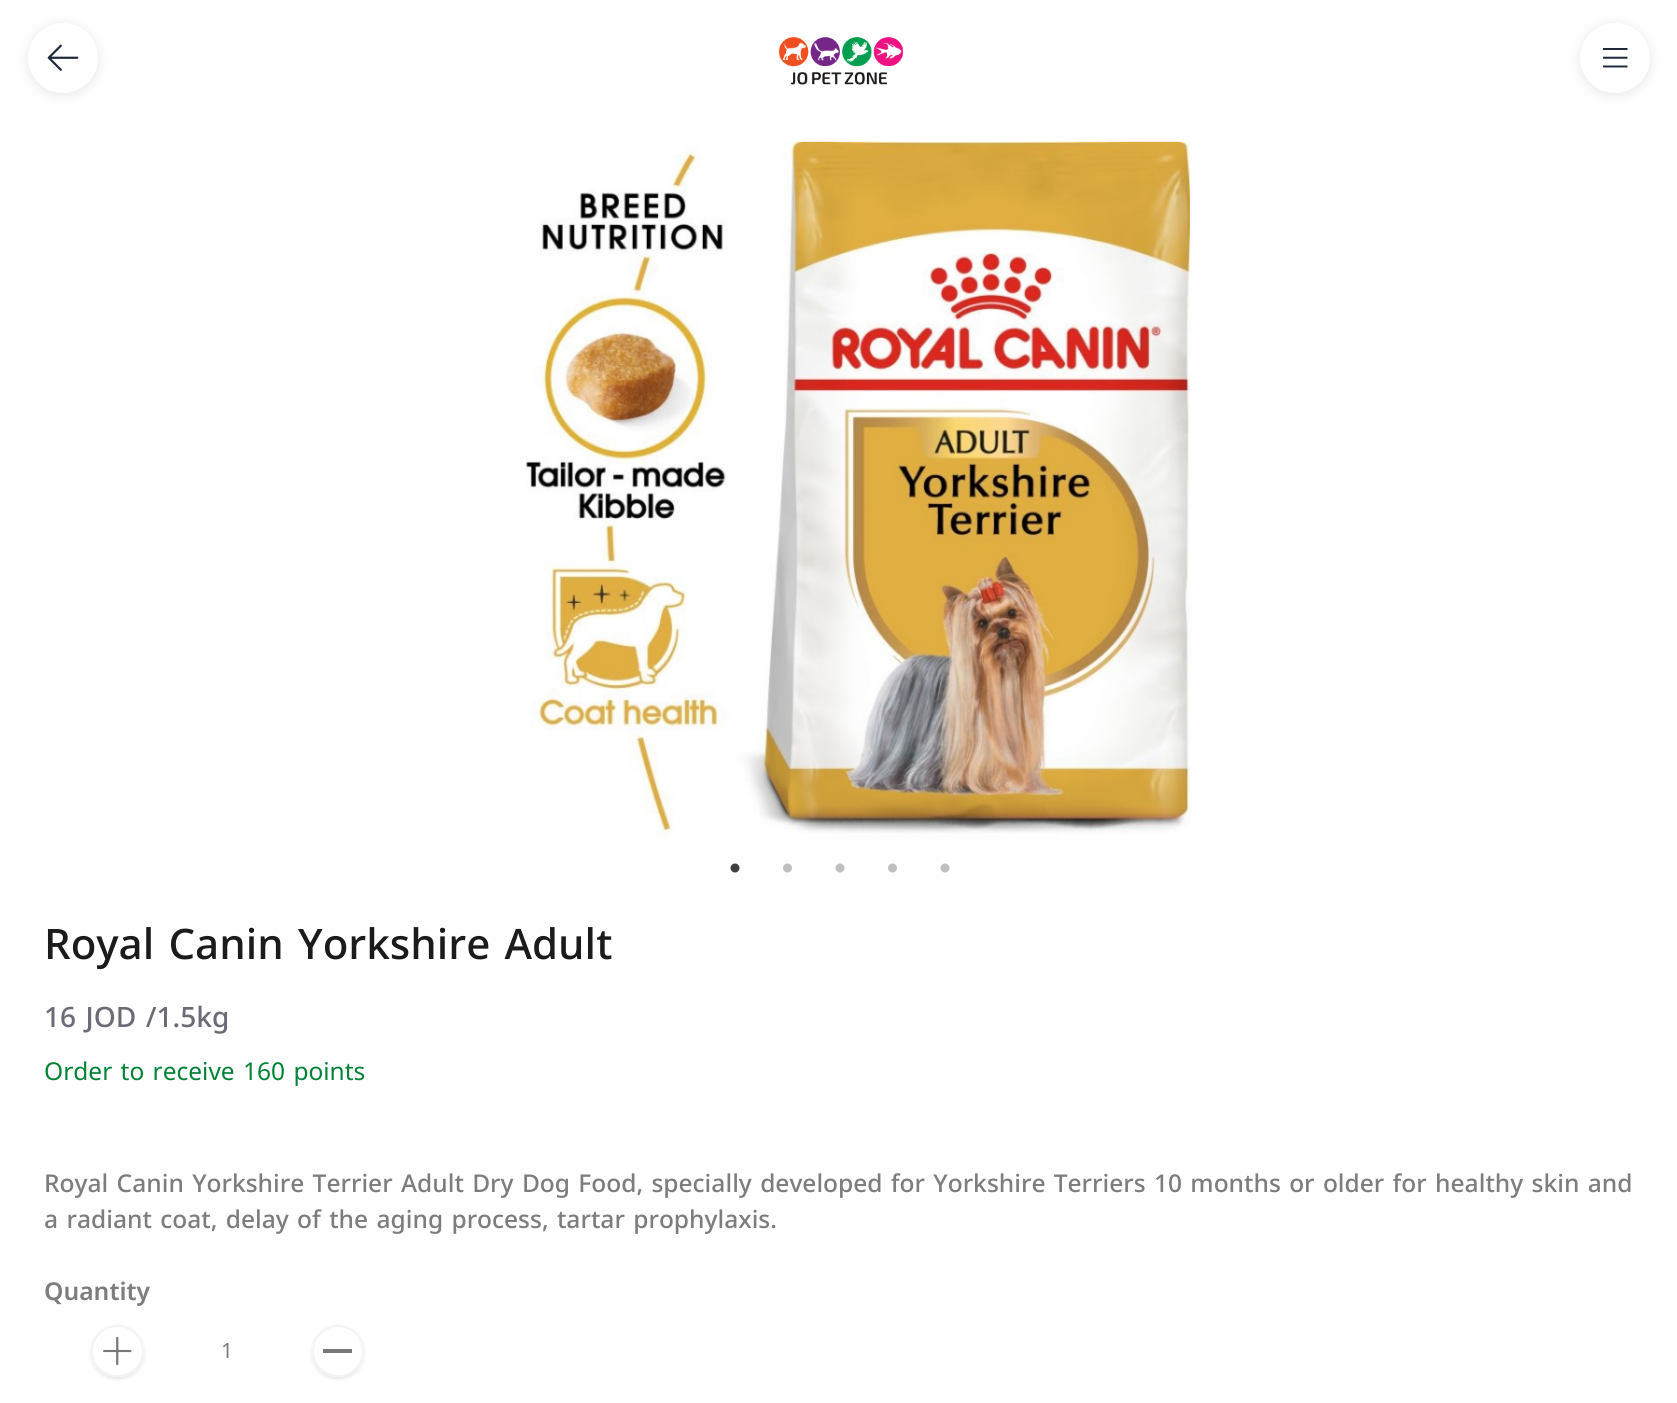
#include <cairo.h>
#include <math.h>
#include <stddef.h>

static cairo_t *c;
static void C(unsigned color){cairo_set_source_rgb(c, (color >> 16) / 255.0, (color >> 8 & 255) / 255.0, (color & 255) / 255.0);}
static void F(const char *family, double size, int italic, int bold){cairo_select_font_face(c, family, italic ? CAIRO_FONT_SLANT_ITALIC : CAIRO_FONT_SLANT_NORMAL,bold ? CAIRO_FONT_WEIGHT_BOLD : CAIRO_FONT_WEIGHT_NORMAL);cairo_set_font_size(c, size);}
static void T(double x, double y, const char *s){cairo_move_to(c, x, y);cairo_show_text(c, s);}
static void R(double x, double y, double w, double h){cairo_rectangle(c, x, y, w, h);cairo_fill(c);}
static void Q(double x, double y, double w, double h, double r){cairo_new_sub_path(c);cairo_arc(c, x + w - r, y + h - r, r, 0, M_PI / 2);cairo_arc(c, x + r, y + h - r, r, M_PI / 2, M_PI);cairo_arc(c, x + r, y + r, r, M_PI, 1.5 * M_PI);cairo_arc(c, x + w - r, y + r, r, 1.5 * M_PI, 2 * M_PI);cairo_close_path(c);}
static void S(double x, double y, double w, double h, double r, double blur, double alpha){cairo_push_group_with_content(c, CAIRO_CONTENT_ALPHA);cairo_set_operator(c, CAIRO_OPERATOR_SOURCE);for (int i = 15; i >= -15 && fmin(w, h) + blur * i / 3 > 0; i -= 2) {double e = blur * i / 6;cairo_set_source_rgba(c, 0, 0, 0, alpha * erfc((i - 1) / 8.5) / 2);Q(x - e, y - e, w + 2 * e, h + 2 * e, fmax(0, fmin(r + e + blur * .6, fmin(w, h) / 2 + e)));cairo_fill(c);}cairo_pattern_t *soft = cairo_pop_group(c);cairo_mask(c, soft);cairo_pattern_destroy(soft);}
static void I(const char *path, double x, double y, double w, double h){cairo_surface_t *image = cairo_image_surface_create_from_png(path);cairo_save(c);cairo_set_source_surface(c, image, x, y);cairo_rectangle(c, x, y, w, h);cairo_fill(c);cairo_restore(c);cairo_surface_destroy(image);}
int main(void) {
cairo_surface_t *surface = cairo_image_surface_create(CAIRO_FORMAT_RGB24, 1677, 1403);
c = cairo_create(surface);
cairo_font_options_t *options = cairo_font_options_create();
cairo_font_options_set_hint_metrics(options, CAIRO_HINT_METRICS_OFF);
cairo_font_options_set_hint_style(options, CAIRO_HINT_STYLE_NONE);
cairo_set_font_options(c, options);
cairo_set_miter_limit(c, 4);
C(0xffffff);
cairo_paint(c);
C(0x000000);
S(28,25,70,70,35,6,.1);
C(0xffffff);
cairo_arc(c,63,58,35,0,2 * M_PI);
cairo_fill(c);
I("1.png",47,44,32,27);
I("2.png",778,37,125,48);
C(0x000000);
S(1580,25,70,70,35,6,.1);
C(0xffffff);
cairo_arc(c,1615,58,35,0,2 * M_PI);
cairo_fill(c);
I("3.png",1603,48,25,20);
I("4.png",525,141,665,701);
I("5.png",730,863,10,10);
I("6.png",783,863,9,10);
I("7.png",835,863,10,10);
I("6.png",888,863,9,10);
I("7.png",940,863,10,10);
F("Noto Kufi Arabic Medium",42,0,0);
C(0x1b1b1b);
T(44,959,"Royal Canin Yorkshire Adult");
F("Noto Kufi Arabic Medium",28,0,0);
C(0x6c6a74);
T(44,1027,"16 JOD /1.5kg");
F("Noto Kufi Arabic",24.5,0,0);
C(0x008236);
T(44,1080,"Order to receive 160 points");
F("Noto Kufi Arabic Medium",24.5,0,0);
C(0x7d7d7d);
T(44,1192,"Royal Canin Yorkshire Terrier Adult Dry Dog Food, specially developed for Yorkshire Terriers 10 months or older for healthy skin and");
T(44,1228,"a radiant coat, delay of the aging process, tartar prophylaxis.");
F("Noto Kufi Arabic SemiBold",24.5,0,0);
T(44,1300,"Quantity");
cairo_save(c);
cairo_set_fill_rule(c,CAIRO_FILL_RULE_EVEN_ODD);
cairo_new_path(c);
cairo_move_to(c,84,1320);
cairo_line_to(c,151,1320);
cairo_line_to(c,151,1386);
cairo_line_to(c,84,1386);
cairo_close_path(c);
cairo_move_to(c,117,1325);
cairo_line_to(c,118,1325);
cairo_curve_to(c,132.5,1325,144,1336.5,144,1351);
cairo_curve_to(c,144,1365.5,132.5,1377,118,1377);
cairo_line_to(c,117,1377);
cairo_curve_to(c,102.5,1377,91,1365.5,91,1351);
cairo_curve_to(c,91,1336.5,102.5,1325,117,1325);
cairo_close_path(c);
cairo_clip(c);
C(0x000000);
S(91,1327,53,52,26,2,.1);
cairo_restore(c);
Q(92,1326,51,50,25);
C(0xf3f3f3);
cairo_stroke(c);
I("8.png",103,1336,29,30);
F("Noto Kufi Arabic",21,0,0);
C(0x7d7d7d);
T(221,1358,"1");
cairo_save(c);
cairo_set_fill_rule(c,CAIRO_FILL_RULE_EVEN_ODD);
cairo_new_path(c);
cairo_move_to(c,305,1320);
cairo_line_to(c,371,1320);
cairo_line_to(c,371,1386);
cairo_line_to(c,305,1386);
cairo_close_path(c);
cairo_move_to(c,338,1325);
cairo_curve_to(c,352.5,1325,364,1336.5,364,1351);
cairo_curve_to(c,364,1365.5,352.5,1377,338,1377);
cairo_curve_to(c,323.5,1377,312,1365.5,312,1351);
cairo_curve_to(c,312,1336.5,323.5,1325,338,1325);
cairo_close_path(c);
cairo_clip(c);
C(0x000000);
S(312,1327,52,52,26,2,.1);
cairo_restore(c);
cairo_arc(c,338,1351,25,0,2 * M_PI);
C(0xf3f3f3);
cairo_stroke(c);
C(0x777777);
R(323,1349,29,4);
cairo_surface_write_to_png(surface, "o.png");
cairo_font_options_destroy(options);
cairo_destroy(c);
cairo_surface_destroy(surface);
return 0;
}
